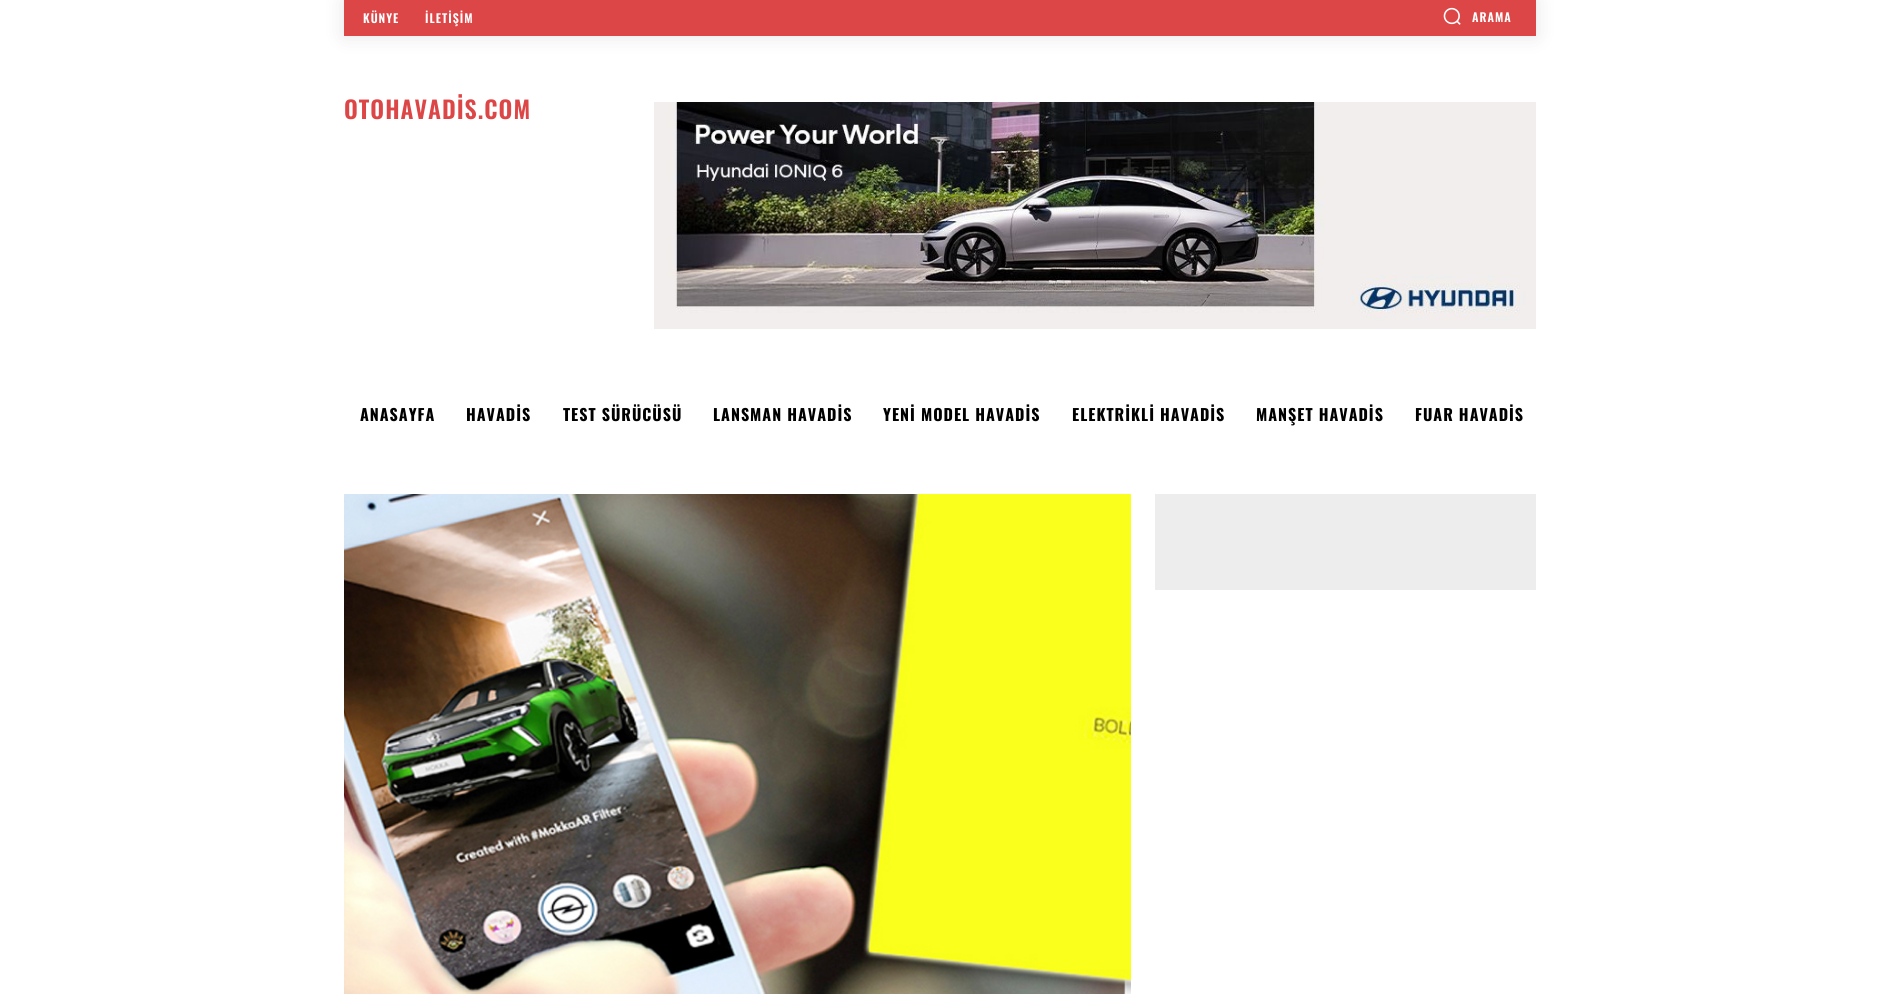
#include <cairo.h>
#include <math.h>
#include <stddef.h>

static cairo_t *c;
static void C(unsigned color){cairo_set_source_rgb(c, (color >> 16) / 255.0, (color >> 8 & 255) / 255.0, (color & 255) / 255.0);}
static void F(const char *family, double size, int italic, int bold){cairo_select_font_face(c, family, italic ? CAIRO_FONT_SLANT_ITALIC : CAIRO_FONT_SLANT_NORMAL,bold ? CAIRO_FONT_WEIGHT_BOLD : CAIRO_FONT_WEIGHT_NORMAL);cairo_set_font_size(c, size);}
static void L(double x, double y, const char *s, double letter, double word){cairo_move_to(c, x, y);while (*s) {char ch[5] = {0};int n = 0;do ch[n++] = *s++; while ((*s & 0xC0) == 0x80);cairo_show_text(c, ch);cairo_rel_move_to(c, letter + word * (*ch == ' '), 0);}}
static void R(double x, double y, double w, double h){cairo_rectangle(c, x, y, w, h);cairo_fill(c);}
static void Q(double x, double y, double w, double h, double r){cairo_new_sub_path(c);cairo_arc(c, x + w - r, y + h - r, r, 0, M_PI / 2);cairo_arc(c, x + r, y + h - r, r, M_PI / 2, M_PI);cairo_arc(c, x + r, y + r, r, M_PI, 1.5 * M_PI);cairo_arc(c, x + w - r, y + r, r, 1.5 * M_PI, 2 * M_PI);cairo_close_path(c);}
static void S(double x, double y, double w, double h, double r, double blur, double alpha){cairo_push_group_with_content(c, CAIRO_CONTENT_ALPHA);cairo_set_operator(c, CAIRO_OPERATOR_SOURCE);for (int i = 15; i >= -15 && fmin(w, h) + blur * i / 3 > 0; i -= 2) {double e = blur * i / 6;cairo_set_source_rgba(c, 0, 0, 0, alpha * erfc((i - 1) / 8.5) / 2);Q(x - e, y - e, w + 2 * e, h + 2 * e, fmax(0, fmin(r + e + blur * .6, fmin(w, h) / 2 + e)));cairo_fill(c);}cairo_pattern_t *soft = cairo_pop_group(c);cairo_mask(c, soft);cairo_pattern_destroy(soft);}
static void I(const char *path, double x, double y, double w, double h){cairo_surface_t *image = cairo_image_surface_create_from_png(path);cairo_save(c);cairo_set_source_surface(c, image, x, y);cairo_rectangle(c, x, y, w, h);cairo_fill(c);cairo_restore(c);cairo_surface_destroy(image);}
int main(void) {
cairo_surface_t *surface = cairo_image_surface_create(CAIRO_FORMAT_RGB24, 1880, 1002);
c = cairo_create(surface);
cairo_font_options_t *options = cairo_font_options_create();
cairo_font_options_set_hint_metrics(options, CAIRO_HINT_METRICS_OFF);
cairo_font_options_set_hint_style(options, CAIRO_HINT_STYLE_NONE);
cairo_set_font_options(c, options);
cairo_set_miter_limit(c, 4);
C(0xffffff);
cairo_paint(c);
C(0x000000);
S(344,0,1192,36,0,10,.1);
C(0xdd4646);
R(344,0,1192,36);
F("Oswald SemiBold",12,0,0);
C(0xffffff);
L(363,23,"KÜNYE",1,0);
L(425,23,"İLETİŞİM",1,0);
I("1.png",1443,7,18,18);
L(1472,22,"ARAMA",1,0);
F("Oswald SemiBold",24,0,0);
C(0xdd4646);
L(344,119,"OTOHAVADİS.COM",1,0);
I("2.png",654,102,882,227);
F("Oswald",16,0,1);
C(0x000000);
L(360,421,"ANASAYFA",1,0);
L(466,421,"HAVADİS",1,0);
L(563,421,"TEST SÜRÜCÜSÜ",1,0);
L(713,421,"LANSMAN HAVADİS",1,0);
L(883,421,"YENİ MODEL HAVADİS",1,0);
L(1072,421,"ELEKTRİKLİ HAVADİS",1,0);
L(1256,421,"MANŞET HAVADİS",1,0);
L(1415,421,"FUAR HAVADİS",1,0);
I("3.png",344,494,787,500);
C(0xededed);
R(1155,494,381,96);
cairo_surface_write_to_png(surface, "o.png");
cairo_font_options_destroy(options);
cairo_destroy(c);
cairo_surface_destroy(surface);
return 0;
}
